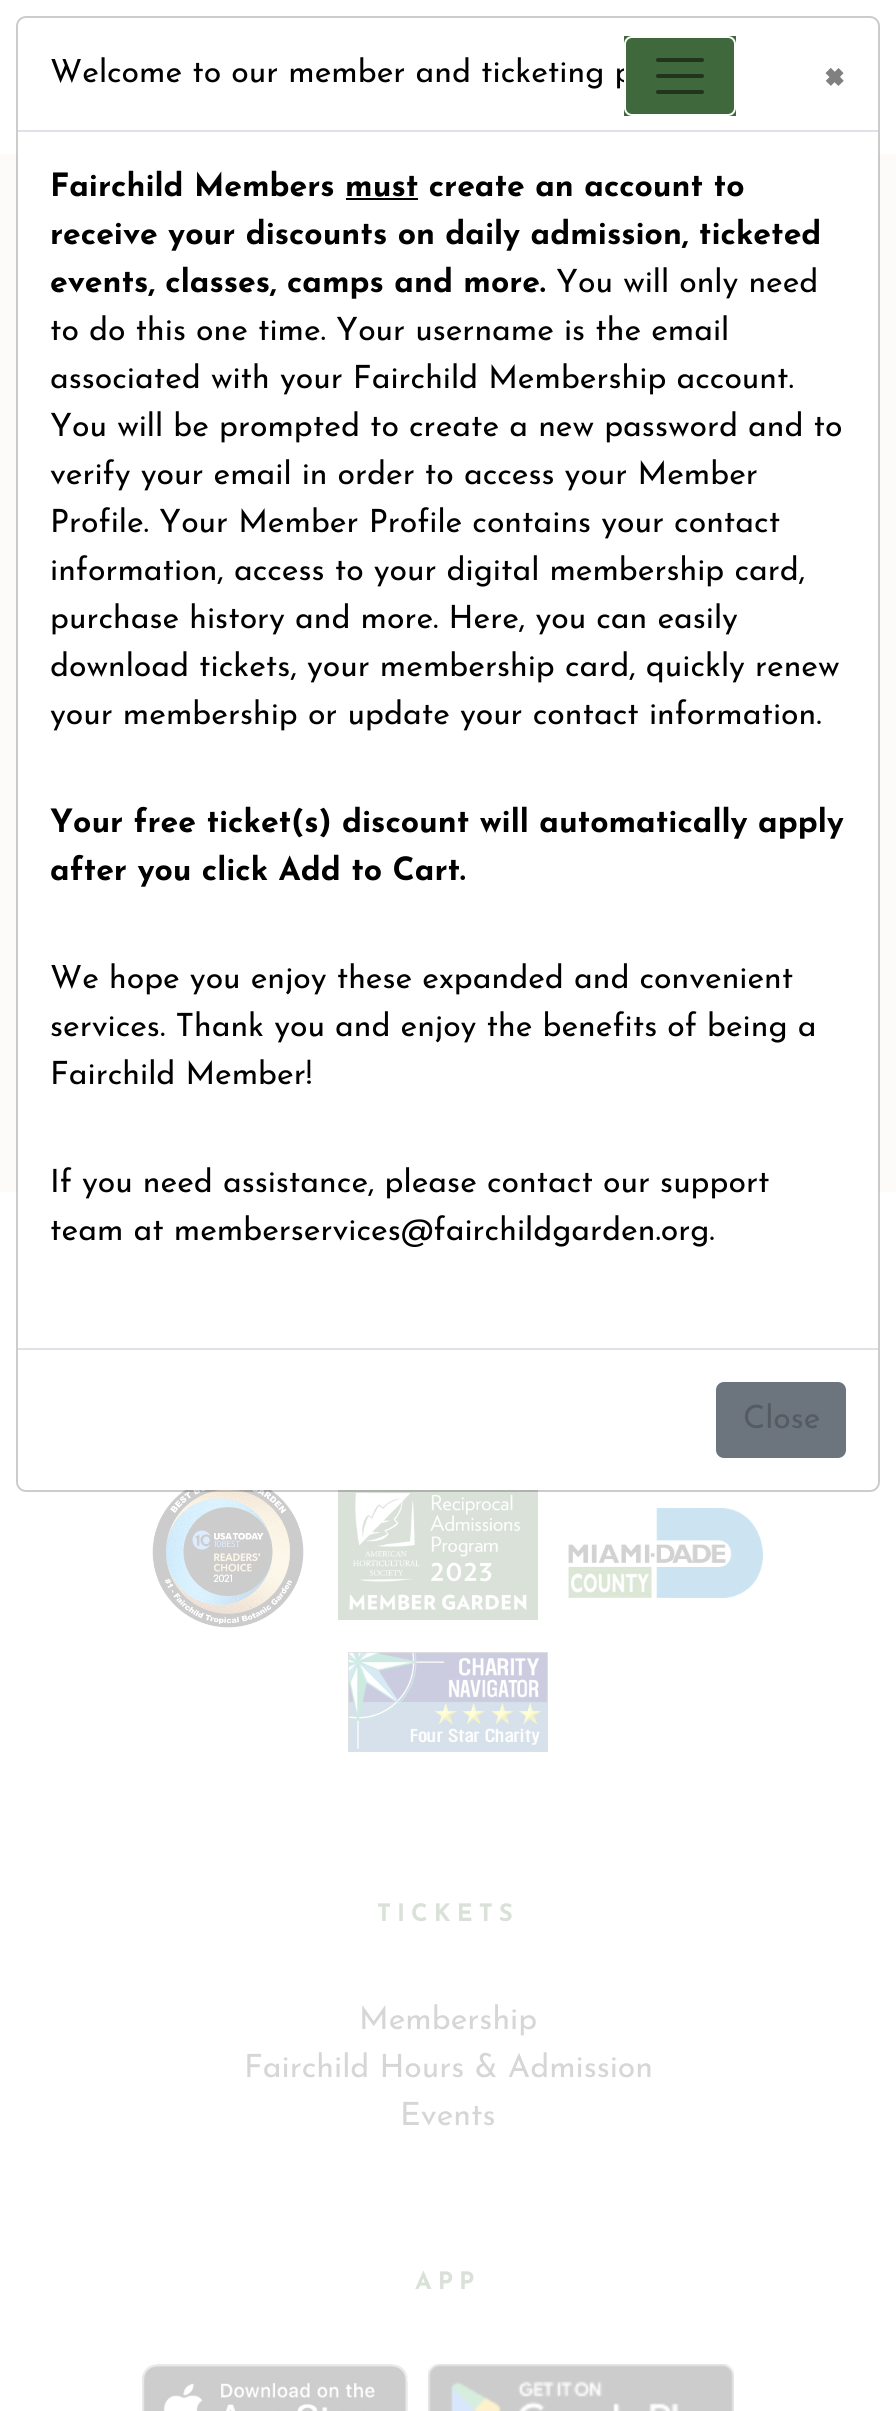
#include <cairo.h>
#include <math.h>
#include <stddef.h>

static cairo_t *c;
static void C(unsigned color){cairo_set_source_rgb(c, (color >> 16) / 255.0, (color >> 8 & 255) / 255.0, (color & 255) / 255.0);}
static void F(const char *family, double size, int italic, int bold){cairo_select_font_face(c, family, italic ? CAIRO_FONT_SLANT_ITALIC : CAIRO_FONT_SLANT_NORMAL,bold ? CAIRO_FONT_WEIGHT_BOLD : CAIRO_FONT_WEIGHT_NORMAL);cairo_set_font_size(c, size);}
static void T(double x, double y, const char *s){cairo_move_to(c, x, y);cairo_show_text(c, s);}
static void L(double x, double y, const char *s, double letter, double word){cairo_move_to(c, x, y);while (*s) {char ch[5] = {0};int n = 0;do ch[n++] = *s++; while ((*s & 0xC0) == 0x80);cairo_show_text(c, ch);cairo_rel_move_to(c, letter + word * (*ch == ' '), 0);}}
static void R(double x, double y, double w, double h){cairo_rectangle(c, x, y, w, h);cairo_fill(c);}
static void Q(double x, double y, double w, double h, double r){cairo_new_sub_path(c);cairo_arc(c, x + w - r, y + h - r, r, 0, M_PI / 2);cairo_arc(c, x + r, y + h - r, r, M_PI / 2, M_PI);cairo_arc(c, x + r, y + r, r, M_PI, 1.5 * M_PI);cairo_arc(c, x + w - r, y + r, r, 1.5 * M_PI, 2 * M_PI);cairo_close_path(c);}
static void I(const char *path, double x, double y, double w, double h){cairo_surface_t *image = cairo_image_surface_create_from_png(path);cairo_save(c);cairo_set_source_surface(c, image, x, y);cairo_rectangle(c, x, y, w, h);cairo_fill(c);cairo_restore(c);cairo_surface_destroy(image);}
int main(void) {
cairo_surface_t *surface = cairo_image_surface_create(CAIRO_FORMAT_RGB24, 896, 2411);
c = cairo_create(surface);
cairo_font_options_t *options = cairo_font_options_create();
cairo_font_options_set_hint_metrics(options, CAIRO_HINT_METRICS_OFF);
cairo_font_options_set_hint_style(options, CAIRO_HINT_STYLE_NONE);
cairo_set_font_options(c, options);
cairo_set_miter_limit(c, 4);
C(0xfcfbfa);
cairo_paint(c);
C(0xffffff);
R(0,0,896,154);
R(0,1192,896,1219);
Q(18,18,860,1472,8);
cairo_fill(c);
I("1.png",152,1490,152,138);
I("2.png",338,1490,200,130);
Q(17,17,862,1474,9);
cairo_set_source_rgba(c,0,0,0,0.2);
cairo_stroke(c);
F("Josefin Sans",32,0,0);
C(0x000000);
T(50,82,"Welcome to our member and ticketing p");
C(0x3f683c);
R(624,36,112,80);
Q(625,37,110,78,7);
C(0xffffff);
cairo_stroke(c);
cairo_new_path(c);
cairo_move_to(c,658,60);
cairo_line_to(c,702,60);
cairo_move_to(c,658,76);
cairo_line_to(c,702,76);
cairo_move_to(c,658,92);
cairo_line_to(c,702,92);
C(0x20341e);
cairo_set_line_width(c,4);
cairo_set_line_cap(c,CAIRO_LINE_CAP_ROUND);
cairo_stroke(c);
C(0xdee2e6);
R(18,130,860,2);
F("Josefin Sans",48,0,1);
C(0x808080);
T(821,86,"×");
F("Josefin Sans",32,0,1);
C(0x000000);
T(50,196,"Fairchild Members must create an account to");
R(346,198,72,2);
T(50,244,"receive your discounts on daily admission, ticketed");
T(50,292,"events, classes, camps and more.");
F("Josefin Sans",32,0,0);
T(556,292,"You will only need");
T(50,340,"to do this one time. Your username is the email");
T(50,388,"associated with your Fairchild Membership account.");
T(50,436,"You will be prompted to create a new password and to");
T(50,484,"verify your email in order to access your Member");
T(50,532,"Profile. Your Member Profile contains your contact");
T(50,580,"information, access to your digital membership card,");
T(50,628,"purchase history and more. Here, you can easily");
T(50,676,"download tickets, your membership card, quickly renew");
T(50,724,"your membership or update your contact information.");
F("Josefin Sans",32,0,1);
T(50,832,"Your free ticket(s) discount will automatically apply");
T(50,880,"after you click Add to Cart.");
F("Josefin Sans",32,0,0);
T(50,988,"We hope you enjoy these expanded and convenient");
T(50,1036,"services. Thank you and enjoy the benefits of being a");
T(50,1084,"Fairchild Member!");
T(50,1192,"If you need assistance, please contact our support");
T(50,1240,"team at memberservices@fairchildgarden.org.");
C(0xdee2e6);
R(18,1348,860,2);
C(0x6c757d);
Q(717,1383,128,74,7);
cairo_fill_preserve(c);
cairo_set_line_width(c,2);
cairo_set_line_cap(c,CAIRO_LINE_CAP_BUTT);
cairo_stroke(c);
C(0x545b62);
T(743,1428,"Close");
I("3.png",568,1508,196,90);
I("4.png",348,1652,200,100);
F("Josefin Sans",24,0,1);
C(0xd9e1d8);
L(377,1921,"TICKETS",6,0);
F("Josefin Sans",32,0,0);
C(0xd6d6d6);
T(359,2029,"Membership");
T(244,2077,"Fairchild Hours & Admission");
T(400,2125,"Events");
F("Josefin Sans",24,0,1);
C(0xd9e1d8);
L(415,2289,"APP",6,0);
I("5.png",142,2364,266,47);
I("6.png",428,2364,306,47);
cairo_surface_write_to_png(surface, "o.png");
cairo_font_options_destroy(options);
cairo_destroy(c);
cairo_surface_destroy(surface);
return 0;
}
